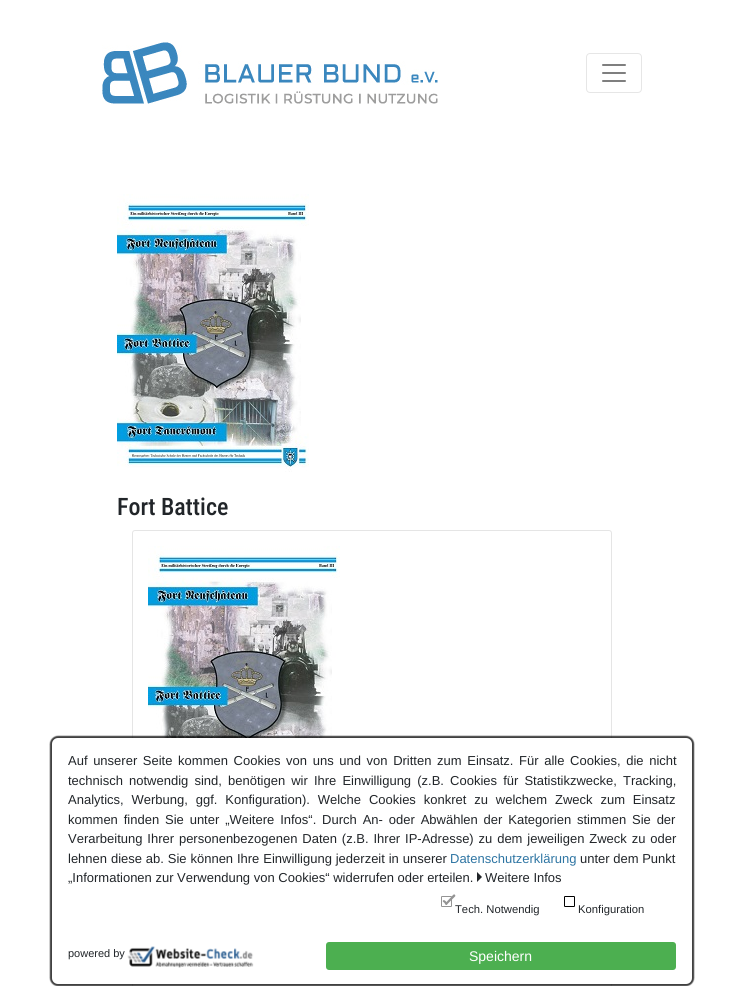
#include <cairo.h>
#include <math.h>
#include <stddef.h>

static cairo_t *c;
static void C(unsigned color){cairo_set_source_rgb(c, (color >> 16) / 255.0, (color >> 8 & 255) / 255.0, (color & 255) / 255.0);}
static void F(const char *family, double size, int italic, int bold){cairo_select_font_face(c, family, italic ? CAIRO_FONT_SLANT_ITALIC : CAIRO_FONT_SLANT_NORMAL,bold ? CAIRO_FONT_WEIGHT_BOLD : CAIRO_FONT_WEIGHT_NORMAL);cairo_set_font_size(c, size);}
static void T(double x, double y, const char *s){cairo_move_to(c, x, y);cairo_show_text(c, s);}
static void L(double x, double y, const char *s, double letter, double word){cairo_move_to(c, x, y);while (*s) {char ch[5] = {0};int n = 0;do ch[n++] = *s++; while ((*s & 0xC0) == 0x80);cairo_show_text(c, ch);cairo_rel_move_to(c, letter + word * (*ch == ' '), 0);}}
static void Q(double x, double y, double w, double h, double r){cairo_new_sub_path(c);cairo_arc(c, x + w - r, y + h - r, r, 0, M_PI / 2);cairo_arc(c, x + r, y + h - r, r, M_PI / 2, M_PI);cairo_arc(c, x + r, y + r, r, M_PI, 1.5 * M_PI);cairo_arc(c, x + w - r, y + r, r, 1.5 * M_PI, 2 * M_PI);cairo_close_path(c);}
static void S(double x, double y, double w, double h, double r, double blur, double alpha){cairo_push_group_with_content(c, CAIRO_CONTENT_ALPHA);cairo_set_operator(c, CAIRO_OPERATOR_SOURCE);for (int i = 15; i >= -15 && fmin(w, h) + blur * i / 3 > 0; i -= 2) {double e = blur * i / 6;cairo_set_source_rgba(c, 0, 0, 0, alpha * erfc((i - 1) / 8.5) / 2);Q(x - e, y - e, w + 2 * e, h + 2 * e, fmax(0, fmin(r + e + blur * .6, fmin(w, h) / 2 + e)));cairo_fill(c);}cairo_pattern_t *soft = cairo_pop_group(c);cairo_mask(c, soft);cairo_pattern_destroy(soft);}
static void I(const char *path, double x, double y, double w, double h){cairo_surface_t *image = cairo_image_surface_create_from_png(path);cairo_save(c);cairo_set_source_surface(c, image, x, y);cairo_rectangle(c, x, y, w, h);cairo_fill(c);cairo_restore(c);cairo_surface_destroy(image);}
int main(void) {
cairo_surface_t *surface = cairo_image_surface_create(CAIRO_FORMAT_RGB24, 744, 986);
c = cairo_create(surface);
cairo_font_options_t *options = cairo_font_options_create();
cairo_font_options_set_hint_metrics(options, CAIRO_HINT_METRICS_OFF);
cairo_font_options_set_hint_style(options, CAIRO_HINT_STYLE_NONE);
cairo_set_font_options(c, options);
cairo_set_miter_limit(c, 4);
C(0xffffff);
cairo_paint(c);
I("1.png",102,42,336,62);
Q(586.5,53.5,55,39,3.5);
C(0xe6e6e6);
cairo_set_line_width(c,1);
cairo_stroke(c);
I("2.png",602,64,24,18);
I("3.png",117,194,192,278);
F("Roboto Condensed Medium",24,0,0);
C(0x212529);
T(117,515,"Fort Battice");
Q(132.5,530.5,479,314,2.5);
C(0xe5e5e5);
cairo_stroke(c);
I("4.png",148,546,192,192);
Q(132.5,860.5,479,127,2.5);
cairo_stroke(c);
C(0x000000);
S(50,736,644,250,8,.5,.75);
C(0xffffff);
Q(52,738,640,246,6);
cairo_fill(c);
F("Liberation Sans",13,0,0);
C(0x212529);
L(68,765,"Auf unserer Seite kommen Cookies von uns und von Dritten zum Einsatz. Für alle Cookies, die nicht",0,2);
L(68,785,"technisch notwendig sind, benötigen wir Ihre Einwilligung (z.B. Cookies für Statistikzwecke, Tracking,",0,2.5);
L(68,804,"Analytics, Werbung, ggf. Konfiguration). Welche Cookies konkret zu welchem Zweck zum Einsatz",0,4.25);
L(68,824,"kommen finden Sie unter „Weitere Infos“. Durch An- oder Abwählen der Kategorien stimmen Sie der",0,2.25);
L(68,843,"Verarbeitung Ihrer personenbezogenen Daten (z.B. Ihrer IP-Adresse) zu dem jeweiligen Zweck zu oder",0,1.25);
L(68,863,"lehnen diese ab. Sie können Ihre Einwilligung jederzeit in unserer",0,.25);
C(0x2e75a3);
T(450,863,"Datenschutzerklärung");
C(0x212529);
T(580,863,"unter dem Punkt");
T(68,882,"„Informationen zur Verwendung von Cookies“ widerrufen oder erteilen.");
cairo_new_path(c);
cairo_move_to(c,477,882);
cairo_line_to(c,477,872);
cairo_line_to(c,482,877);
cairo_close_path(c);
cairo_fill(c);
T(485,882,"Weitere Infos");
Q(441.5,896.5,10,10,.5);
C(0x949494);
cairo_stroke(c);
F("Liberation Sans",11.25,0,0);
C(0x212529);
T(455,913,"Tech. Notwendig");
C(0x949494);
cairo_new_path(c);
cairo_move_to(c,445.5,904.5);
cairo_line_to(c,445.5,904);
cairo_curve_to(c,445,904,445,903,445.5,903);
cairo_line_to(c,453.5,894.5);
cairo_curve_to(c,454,894.5,454.5,894.5,455,894.5);
cairo_line_to(c,455,895);
cairo_curve_to(c,455.5,895.5,455.5,896,455,896.5);
cairo_line_to(c,447,904.5);
cairo_curve_to(c,446.5,905,446,905,445.5,904.5);
cairo_close_path(c);
cairo_fill(c);
cairo_new_path(c);
cairo_move_to(c,443,900.5);
cairo_curve_to(c,444,899.5,445,900.5,446,901.5);
cairo_curve_to(c,446.5,902.5,448,903.5,447,904.5);
cairo_curve_to(c,446,905.5,445,904,444.5,903);
cairo_curve_to(c,444,902.5,442,901.5,443,900.5);
cairo_close_path(c);
cairo_fill(c);
Q(564.5,896.5,10,10,.5);
C(0x000000);
cairo_stroke(c);
C(0x212529);
T(578,913,"Konfiguration");
F("Liberation Sans",11,0,0);
T(68,957,"powered by");
I("5.png",127,946,127,22);
C(0x4caf50);
Q(326,942,350,28,3);
cairo_fill(c);
F("Liberation Sans",14,0,0);
C(0xffffff);
T(469,961,"Speichern");
cairo_surface_write_to_png(surface, "o.png");
cairo_font_options_destroy(options);
cairo_destroy(c);
cairo_surface_destroy(surface);
return 0;
}
